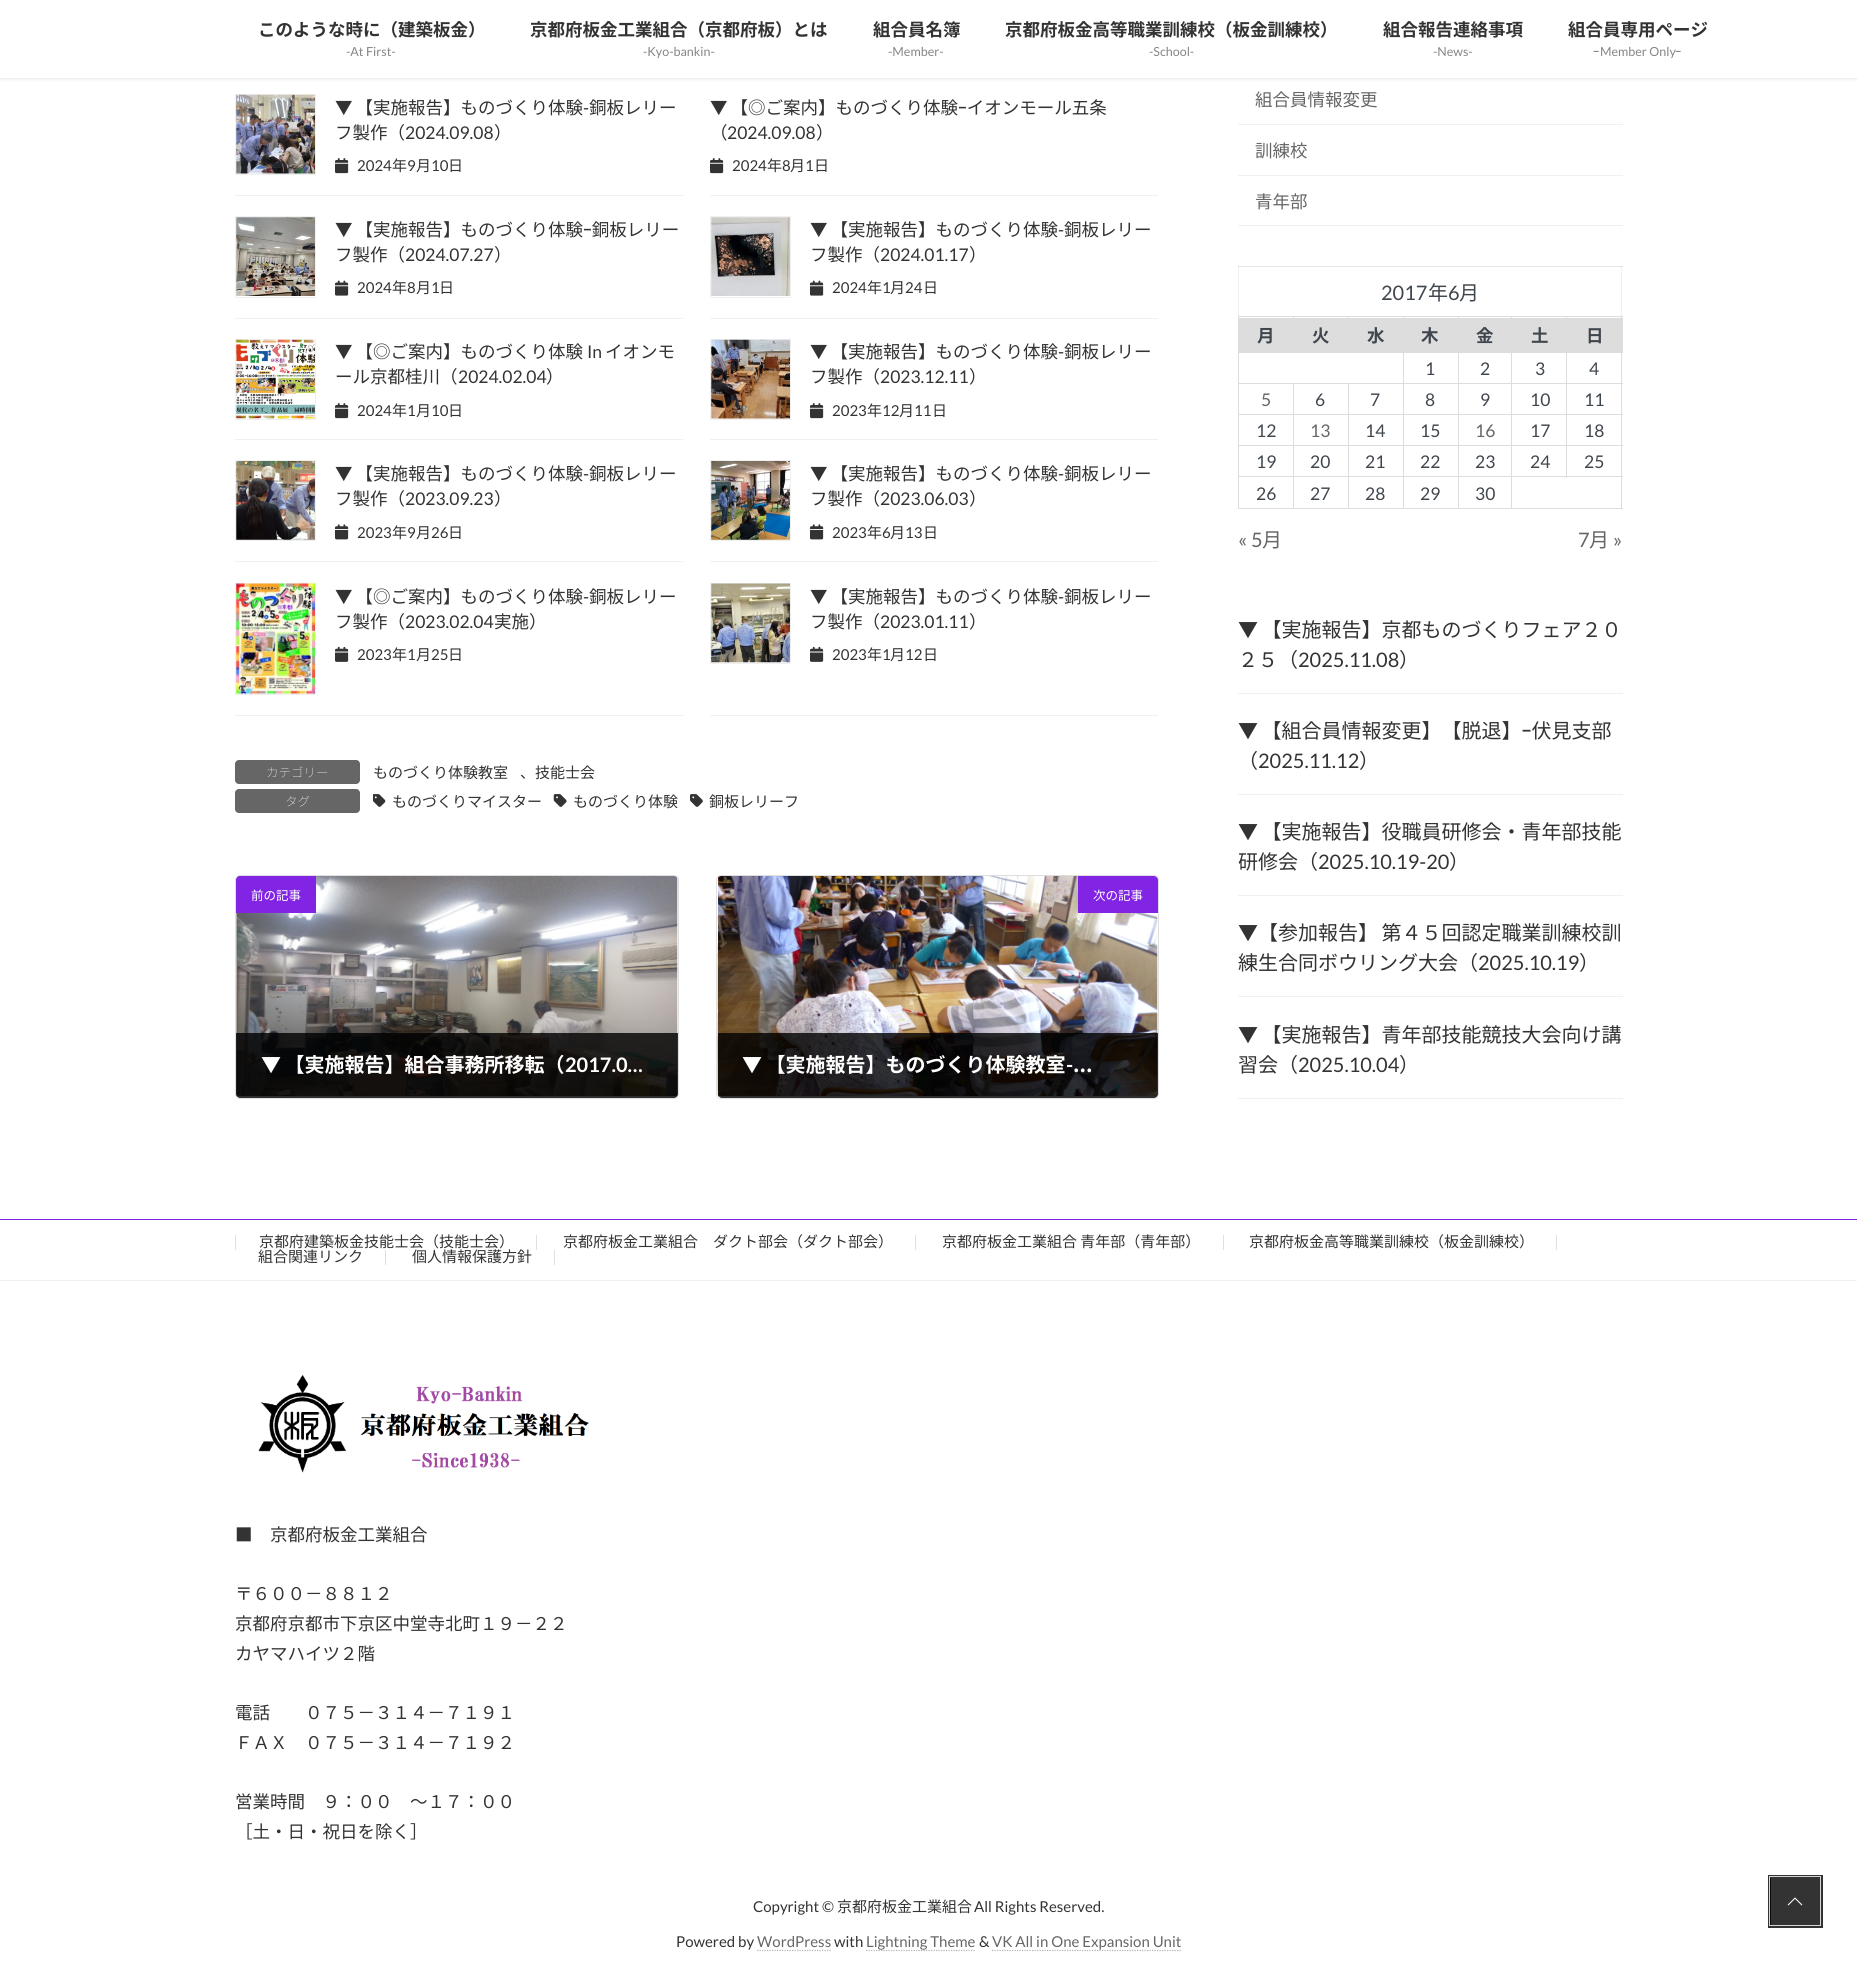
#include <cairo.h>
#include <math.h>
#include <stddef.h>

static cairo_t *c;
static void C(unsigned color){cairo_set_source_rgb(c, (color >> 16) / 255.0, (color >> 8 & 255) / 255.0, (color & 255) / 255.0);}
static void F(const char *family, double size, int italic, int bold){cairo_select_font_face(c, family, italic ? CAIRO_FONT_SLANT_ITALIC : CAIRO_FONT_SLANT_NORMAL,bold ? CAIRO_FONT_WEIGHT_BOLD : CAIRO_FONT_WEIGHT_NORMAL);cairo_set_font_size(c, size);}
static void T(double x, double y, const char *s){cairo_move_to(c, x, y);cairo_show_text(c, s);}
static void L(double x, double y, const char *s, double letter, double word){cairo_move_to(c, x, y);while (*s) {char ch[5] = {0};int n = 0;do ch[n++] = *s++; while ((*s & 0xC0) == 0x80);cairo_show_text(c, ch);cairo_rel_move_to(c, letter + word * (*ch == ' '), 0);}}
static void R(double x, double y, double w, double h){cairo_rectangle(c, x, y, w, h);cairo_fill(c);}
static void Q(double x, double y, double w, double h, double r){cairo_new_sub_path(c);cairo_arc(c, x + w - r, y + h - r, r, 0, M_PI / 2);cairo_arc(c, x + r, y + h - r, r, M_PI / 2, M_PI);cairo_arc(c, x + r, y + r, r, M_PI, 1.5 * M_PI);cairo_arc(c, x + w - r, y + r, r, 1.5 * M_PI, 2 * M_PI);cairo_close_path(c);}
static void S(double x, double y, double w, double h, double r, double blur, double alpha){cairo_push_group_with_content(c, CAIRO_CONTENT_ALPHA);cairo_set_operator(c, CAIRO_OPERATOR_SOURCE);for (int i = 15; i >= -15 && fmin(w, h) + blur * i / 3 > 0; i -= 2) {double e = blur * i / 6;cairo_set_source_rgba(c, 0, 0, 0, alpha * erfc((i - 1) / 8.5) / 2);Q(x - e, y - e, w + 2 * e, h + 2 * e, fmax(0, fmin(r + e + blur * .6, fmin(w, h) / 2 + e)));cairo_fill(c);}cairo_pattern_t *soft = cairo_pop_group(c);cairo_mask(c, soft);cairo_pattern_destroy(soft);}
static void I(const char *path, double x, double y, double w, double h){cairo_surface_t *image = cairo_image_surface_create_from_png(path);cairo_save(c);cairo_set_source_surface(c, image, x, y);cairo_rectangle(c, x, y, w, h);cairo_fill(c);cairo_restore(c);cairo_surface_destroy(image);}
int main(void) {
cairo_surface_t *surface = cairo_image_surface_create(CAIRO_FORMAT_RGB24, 1857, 1984);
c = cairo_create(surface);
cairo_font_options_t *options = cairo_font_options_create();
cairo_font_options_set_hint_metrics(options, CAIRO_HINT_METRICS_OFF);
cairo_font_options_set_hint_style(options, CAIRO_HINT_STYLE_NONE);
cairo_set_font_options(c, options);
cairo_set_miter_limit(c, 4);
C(0xffffff);
cairo_paint(c);
C(0xf0f0f0);
R(1238,266,1,50);
R(1621,266,1,50);
C(0x000000);
S(0,1,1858,78,0,2,.1);
C(0xffffff);
R(0,0,1857,78);
F("Noto Sans JP",17.5,0,1);
C(0x333333);
T(258,36,"このような時に（建築板金）");
F("Lato",12.5,0,0);
C(0x858585);
T(346,56,"-At First-");
F("Noto Sans JP",17.5,0,1);
C(0x333333);
T(530,36,"京都府板金工業組合（京都府板）とは");
F("Lato",12.5,0,0);
C(0x858585);
T(643,56,"-Kyo-bankin-");
F("Noto Sans JP",17.5,0,1);
C(0x333333);
T(873,36,"組合員名簿");
F("Lato",12.5,0,0);
C(0x858585);
T(888,56,"-Member-");
F("Noto Sans JP",17.5,0,1);
C(0x333333);
T(1005,36,"京都府板金高等職業訓練校（板金訓練校）");
F("Lato",12.5,0,0);
C(0x858585);
T(1149,56,"-School-");
F("Noto Sans JP",17.5,0,1);
C(0x333333);
T(1383,36,"組合報告連絡事項");
F("Lato",12.5,0,0);
C(0x858585);
T(1433,56,"-News-");
F("Noto Sans JP",17.5,0,1);
C(0x333333);
T(1568,36,"組合員専用ページ");
F("Noto Sans JP",12.5,0,0);
C(0x858585);
T(1593,56,"ｰ");
F("Lato",12.5,0,0);
T(1600,56,"Member Only");
F("Noto Sans JP",12.5,0,0);
T(1675,56,"ｰ");
C(0xf0f0f0);
R(235,195,448,1);
cairo_rectangle(c,235.5,94.5,80,80);
cairo_set_line_width(c,1);
cairo_stroke(c);
I("1.png",236,94,79,80);
F("Noto Sans JP",17.5,0,0);
C(0x333333);
L(335,114,"▼ 【実施報告】ものづくり体験",0,-1);
F("Lato",17.5,0,0);
T(583,114,"-");
F("Noto Sans JP",17.5,0,0);
T(589,114,"銅板レリー");
T(335,139,"フ製作（");
F("Lato",17.5,0,0);
T(405,139,"2024.09.08");
F("Noto Sans JP",17.5,0,0);
T(494,139,"）");
I("2.png",335,158,14,16);
F("Lato",15,0,0);
T(357,171,"2024");
F("Noto Sans JP",15,0,0);
T(392,171,"年");
F("Lato",15,0,0);
T(407,171,"9");
F("Noto Sans JP",15,0,0);
T(416,171,"月");
F("Lato",15,0,0);
T(431,171,"10");
F("Noto Sans JP",15,0,0);
T(448,171,"日");
C(0xf0f0f0);
R(710,195,448,1);
F("Noto Sans JP",17.5,0,0);
C(0x333333);
L(710,114,"▼ 【◎ご案内】ものづくり体験ｰイオンモール五条",0,-1);
T(710,139,"（");
F("Lato",17.5,0,0);
T(727,139,"2024.09.08");
F("Noto Sans JP",17.5,0,0);
T(816,139,"）");
I("2.png",710,158,14,16);
F("Lato",15,0,0);
T(732,171,"2024");
F("Noto Sans JP",15,0,0);
T(767,171,"年");
F("Lato",15,0,0);
T(782,171,"8");
F("Noto Sans JP",15,0,0);
T(790,171,"月");
F("Lato",15,0,0);
T(805,171,"1");
F("Noto Sans JP",15,0,0);
T(814,171,"日");
C(0xf0f0f0);
R(235,318,448,1);
cairo_rectangle(c,235.5,216.5,80,81);
cairo_stroke(c);
I("3.png",236,217,79,79);
F("Noto Sans JP",17.5,0,0);
C(0x333333);
L(335,236,"▼ 【実施報告】ものづくり体験ｰ銅板レリー",0,-1);
T(335,261,"フ製作（");
F("Lato",17.5,0,0);
T(405,261,"2024.07.27");
F("Noto Sans JP",17.5,0,0);
T(494,261,"）");
I("4.png",335,280,14,16);
F("Lato",15,0,0);
T(357,293,"2024");
F("Noto Sans JP",15,0,0);
T(392,293,"年");
F("Lato",15,0,0);
T(407,293,"8");
F("Noto Sans JP",15,0,0);
T(416,293,"月");
F("Lato",15,0,0);
T(431,293,"1");
F("Noto Sans JP",15,0,0);
T(439,293,"日");
C(0xf0f0f0);
R(710,318,448,1);
cairo_rectangle(c,710.5,216.5,80,81);
cairo_stroke(c);
I("5.png",711,217,79,79);
F("Noto Sans JP",17.5,0,0);
C(0x333333);
L(810,236,"▼ 【実施報告】ものづくり体験",0,-1);
F("Lato",17.5,0,0);
T(1058,236,"-");
F("Noto Sans JP",17.5,0,0);
T(1064,236,"銅板レリー");
T(810,261,"フ製作（");
F("Lato",17.5,0,0);
T(880,261,"2024.01.17");
F("Noto Sans JP",17.5,0,0);
T(969,261,"）");
I("4.png",810,280,14,16);
F("Lato",15,0,0);
T(832,293,"2024");
F("Noto Sans JP",15,0,0);
T(867,293,"年");
F("Lato",15,0,0);
T(882,293,"1");
F("Noto Sans JP",15,0,0);
T(890,293,"月");
F("Lato",15,0,0);
T(905,293,"24");
F("Noto Sans JP",15,0,0);
T(923,293,"日");
C(0xf0f0f0);
R(235,439,448,1);
cairo_rectangle(c,235.5,339.5,80,80);
cairo_stroke(c);
I("6.png",236,339,79,80);
F("Noto Sans JP",17.5,0,0);
C(0x333333);
L(335,358,"▼ 【◎ご案内】ものづくり体験",0,-1);
F("Lato",17.5,0,0);
T(587,358,"In");
F("Noto Sans JP",17.5,0,0);
T(605,358,"イオンモ");
T(335,383,"ール京都桂川（");
F("Lato",17.5,0,0);
T(458,383,"2024.02.04");
F("Noto Sans JP",17.5,0,0);
T(546,383,"）");
I("2.png",335,403,14,16);
F("Lato",15,0,0);
T(357,416,"2024");
F("Noto Sans JP",15,0,0);
T(392,416,"年");
F("Lato",15,0,0);
T(407,416,"1");
F("Noto Sans JP",15,0,0);
T(416,416,"月");
F("Lato",15,0,0);
T(431,416,"10");
F("Noto Sans JP",15,0,0);
T(448,416,"日");
C(0xf0f0f0);
R(710,439,448,1);
cairo_rectangle(c,710.5,339.5,80,80);
cairo_stroke(c);
I("7.png",711,339,79,80);
F("Noto Sans JP",17.5,0,0);
C(0x333333);
L(810,358,"▼ 【実施報告】ものづくり体験",0,-1);
F("Lato",17.5,0,0);
T(1058,358,"-");
F("Noto Sans JP",17.5,0,0);
T(1064,358,"銅板レリー");
T(810,383,"フ製作（");
F("Lato",17.5,0,0);
T(880,383,"2023.12.11");
F("Noto Sans JP",17.5,0,0);
T(969,383,"）");
I("2.png",810,403,14,16);
F("Lato",15,0,0);
T(832,416,"2023");
F("Noto Sans JP",15,0,0);
T(867,416,"年");
F("Lato",15,0,0);
T(882,416,"12");
F("Noto Sans JP",15,0,0);
T(899,416,"月");
F("Lato",15,0,0);
T(914,416,"11");
F("Noto Sans JP",15,0,0);
T(932,416,"日");
C(0xf0f0f0);
R(235,561,448,1);
cairo_rectangle(c,235.5,460.5,80,80);
cairo_stroke(c);
I("8.png",236,461,79,79);
F("Noto Sans JP",17.5,0,0);
C(0x333333);
L(335,480,"▼ 【実施報告】ものづくり体験",0,-1);
F("Lato",17.5,0,0);
T(583,480,"-");
F("Noto Sans JP",17.5,0,0);
T(589,480,"銅板レリー");
T(335,505,"フ製作（");
F("Lato",17.5,0,0);
T(405,505,"2023.09.23");
F("Noto Sans JP",17.5,0,0);
T(494,505,"）");
I("9.png",335,524,14,16);
F("Lato",15,0,0);
T(357,538,"2023");
F("Noto Sans JP",15,0,0);
T(392,538,"年");
F("Lato",15,0,0);
T(407,538,"9");
F("Noto Sans JP",15,0,0);
T(416,538,"月");
F("Lato",15,0,0);
T(431,538,"26");
F("Noto Sans JP",15,0,0);
T(448,538,"日");
C(0xf0f0f0);
R(710,561,448,1);
cairo_rectangle(c,710.5,460.5,80,80);
cairo_stroke(c);
I("10.png",711,461,79,79);
F("Noto Sans JP",17.5,0,0);
C(0x333333);
L(810,480,"▼ 【実施報告】ものづくり体験",0,-1);
F("Lato",17.5,0,0);
T(1058,480,"-");
F("Noto Sans JP",17.5,0,0);
T(1064,480,"銅板レリー");
T(810,505,"フ製作（");
F("Lato",17.5,0,0);
T(880,505,"2023.06.03");
F("Noto Sans JP",17.5,0,0);
T(969,505,"）");
I("9.png",810,524,14,16);
F("Lato",15,0,0);
T(832,538,"2023");
F("Noto Sans JP",15,0,0);
T(867,538,"年");
F("Lato",15,0,0);
T(882,538,"6");
F("Noto Sans JP",15,0,0);
T(890,538,"月");
F("Lato",15,0,0);
T(905,538,"13");
F("Noto Sans JP",15,0,0);
T(923,538,"日");
C(0xf0f0f0);
R(235,715,448,1);
cairo_rectangle(c,235.5,583.5,80,111);
cairo_stroke(c);
I("11.png",236,583,79,111);
F("Noto Sans JP",17.5,0,0);
C(0x333333);
L(335,603,"▼ 【◎ご案内】ものづくり体験",0,-1);
F("Lato",17.5,0,0);
T(583,603,"-");
F("Noto Sans JP",17.5,0,0);
T(589,603,"銅板レリー");
T(335,628,"フ製作（");
F("Lato",17.5,0,0);
T(405,628,"2023.02.04");
F("Noto Sans JP",17.5,0,0);
T(494,628,"実施）");
I("12.png",335,646,14,16);
F("Lato",15,0,0);
T(357,660,"2023");
F("Noto Sans JP",15,0,0);
T(392,660,"年");
F("Lato",15,0,0);
T(407,660,"1");
F("Noto Sans JP",15,0,0);
T(416,660,"月");
F("Lato",15,0,0);
T(431,660,"25");
F("Noto Sans JP",15,0,0);
T(448,660,"日");
C(0xf0f0f0);
R(710,715,448,1);
cairo_rectangle(c,710.5,583.5,80,80);
cairo_stroke(c);
I("13.png",711,583,79,80);
F("Noto Sans JP",17.5,0,0);
C(0x333333);
L(810,603,"▼ 【実施報告】ものづくり体験",0,-1);
F("Lato",17.5,0,0);
T(1058,603,"-");
F("Noto Sans JP",17.5,0,0);
T(1064,603,"銅板レリー");
T(810,628,"フ製作（");
F("Lato",17.5,0,0);
T(880,628,"2023.01.11");
F("Noto Sans JP",17.5,0,0);
T(969,628,"）");
I("12.png",810,646,14,16);
F("Lato",15,0,0);
T(832,660,"2023");
F("Noto Sans JP",15,0,0);
T(867,660,"年");
F("Lato",15,0,0);
T(882,660,"1");
F("Noto Sans JP",15,0,0);
T(890,660,"月");
F("Lato",15,0,0);
T(905,660,"12");
F("Noto Sans JP",15,0,0);
T(923,660,"日");
C(0x666666);
Q(235,760,125,24,4);
cairo_fill(c);
F("Noto Sans JP Thin",12.5,0,0);
C(0xffffff);
T(266,777,"カテゴリー");
F("Noto Sans JP",15,0,0);
C(0x333333);
T(373,778,"ものづくり体験教室");
T(520,778,"、技能士会");
C(0x666666);
Q(235,789,125,24,4);
cairo_fill(c);
F("Noto Sans JP Thin",12.5,0,0);
C(0xffffff);
T(285,806,"タグ");
I("14.png",373,794,13,13);
F("Noto Sans JP",15,0,0);
C(0x333333);
T(392,807,"ものづくりマイスター");
I("15.png",553,794,14,13);
T(573,807,"ものづくり体験");
I("16.png",690,794,13,13);
T(709,807,"銅板レリーフ");
Q(235.5,875.5,443,223,4.5);
C(0xdfdfdf);
cairo_stroke(c);
I("17.png",236,876,442,222);
cairo_save(c);
Q(236,876,442,222,4);
cairo_clip(c);
C(0xe5e5e5);
R(236,1096,442,1);
cairo_restore(c);
C(0x8224e3);
cairo_new_path(c);
cairo_move_to(c,240,876);
cairo_line_to(c,316,876);
cairo_line_to(c,316,913);
cairo_line_to(c,236,913);
cairo_line_to(c,236,880);
cairo_curve_to(c,236,878,238,876,240,876);
cairo_close_path(c);
cairo_fill(c);
F("Noto Sans JP",12.5,0,0);
C(0xffffff);
T(251,900,"前の記事");
cairo_set_source_rgba(c,0,0,0,0.8);
cairo_new_path(c);
cairo_move_to(c,236,1033);
cairo_line_to(c,678,1033);
cairo_line_to(c,678,1094);
cairo_curve_to(c,678,1096,676,1098,674,1098);
cairo_line_to(c,240,1098);
cairo_curve_to(c,238,1098,236,1096,236,1094);
cairo_close_path(c);
cairo_fill(c);
F("Noto Sans JP",20,0,1);
C(0xffffff);
L(261,1072,"▼ 【実施報告】組合事務所移転（",0,-1);
F("Lato",20,0,1);
T(565,1072,"2017.0…");
Q(716.5,875.5,442,223,4.5);
C(0xdfdfdf);
cairo_stroke(c);
I("18.png",717,876,441,222);
cairo_save(c);
Q(718,876,440,222,4);
cairo_clip(c);
C(0xe5e5e5);
R(718,1096,440,1);
cairo_restore(c);
C(0x8224e3);
cairo_new_path(c);
cairo_move_to(c,1078,876);
cairo_line_to(c,1154,876);
cairo_curve_to(c,1156,876,1158,878,1158,880);
cairo_line_to(c,1158,913);
cairo_line_to(c,1078,913);
cairo_close_path(c);
cairo_fill(c);
F("Noto Sans JP",12.5,0,0);
C(0xffffff);
T(1093,900,"次の記事");
cairo_set_source_rgba(c,0,0,0,0.8);
cairo_new_path(c);
cairo_move_to(c,718,1033);
cairo_line_to(c,1158,1033);
cairo_line_to(c,1158,1094);
cairo_curve_to(c,1158,1096,1156,1098,1154,1098);
cairo_line_to(c,722,1098);
cairo_curve_to(c,720,1098,718,1096,718,1094);
cairo_close_path(c);
cairo_fill(c);
cairo_set_source_rgba(c,0,0,0,0.06);
R(1066,1089,41,1);
F("Noto Sans JP",20,0,1);
C(0xffffff);
L(742,1072,"▼ 【実施報告】ものづくり体験教室",0,-1);
F("Lato",20,0,1);
T(1066,1072,"-");
F("Noto Sans JP",20,0,1);
L(1073,1072,"...",0,-1);
C(0xf0f0f0);
R(1238,124,385,1);
F("Noto Sans JP",17.5,0,0);
C(0x666666);
T(1255,106,"組合員情報変更");
C(0xf0f0f0);
R(1238,175,385,1);
C(0x666666);
T(1255,157,"訓練校");
C(0xf0f0f0);
R(1238,225,385,1);
C(0x666666);
T(1255,208,"青年部");
C(0xe5e5e5);
R(1238,266,385,1);
C(0xd7d7d7);
R(1238,266,1,1);
R(1621,266,1,1);
F("Lato",20,0,0);
C(0x40464d);
T(1381,300,"2017");
F("Noto Sans JP",20,0,0);
T(1428,300,"年");
F("Lato",20,0,0);
T(1448,300,"6");
F("Noto Sans JP",20,0,0);
T(1459,300,"月");
C(0xdddddd);
R(1239,318,54,35);
R(1566,316,57,1);
R(1566,316,1,2);
R(1511,316,57,1);
R(1511,316,1,2);
R(1458,316,55,1);
R(1566,383,57,1);
R(1566,414,57,1);
R(1566,445,57,1);
R(1511,476,112,1);
R(1566,445,1,33);
R(1511,445,57,1);
R(1566,414,1,32);
R(1511,414,57,1);
R(1566,383,1,32);
R(1511,383,57,1);
R(1621,476,1,33);
R(1511,508,112,1);
R(1511,476,1,33);
R(1458,476,55,1);
R(1511,445,1,33);
R(1458,445,55,1);
R(1511,414,1,32);
R(1458,414,55,1);
R(1511,383,1,32);
R(1458,383,55,1);
R(1458,508,55,1);
R(1458,476,1,33);
R(1403,476,56,1);
R(1458,445,1,33);
R(1403,445,56,1);
R(1458,414,1,32);
R(1403,414,56,1);
R(1458,383,1,32);
R(1403,383,56,1);
R(1458,351,1,33);
R(1458,316,1,37);
R(1403,316,56,1);
R(1403,508,56,1);
R(1403,476,1,33);
R(1348,476,56,1);
R(1403,445,1,33);
R(1348,445,56,1);
R(1403,414,1,32);
R(1348,414,56,1);
R(1403,383,1,32);
R(1348,383,56,1);
R(1403,351,1,33);
R(1403,316,1,37);
R(1348,316,56,1);
R(1294,318,54,35);
R(1238,351,111,1);
R(1348,316,1,37);
R(1293,316,56,1);
R(1293,316,1,37);
R(1238,316,56,1);
R(1348,508,56,1);
R(1348,476,1,33);
R(1293,476,56,1);
R(1348,445,1,33);
R(1293,445,56,1);
R(1348,414,1,32);
R(1293,414,56,1);
R(1348,383,1,32);
R(1293,383,56,1);
R(1293,508,56,1);
R(1293,476,1,33);
R(1238,476,56,1);
R(1293,445,1,33);
R(1238,445,56,1);
R(1293,414,1,32);
R(1238,414,56,1);
R(1293,383,1,32);
R(1238,383,56,1);
R(1238,508,56,1);
R(1238,476,1,33);
R(1238,445,1,33);
R(1238,414,1,32);
R(1238,383,1,32);
R(1238,351,1,33);
R(1238,316,1,37);
F("Noto Sans JP",17.5,0,1);
C(0x40464d);
T(1257,342,"月");
T(1312,342,"火");
C(0xdddddd);
R(1349,318,54,35);
C(0x40464d);
T(1367,342,"水");
C(0xdddddd);
R(1404,318,54,35);
C(0x40464d);
T(1421,342,"木");
C(0xdddddd);
R(1459,318,164,35);
C(0x40464d);
T(1476,342,"金");
T(1531,342,"土");
C(0xdddddd);
R(1621,316,1,2);
C(0x40464d);
T(1586,342,"日");
F("Lato",17.5,0,0);
T(1425,375,"1");
T(1480,375,"2");
C(0xdddddd);
R(1511,351,1,33);
C(0x40464d);
T(1535,375,"3");
C(0xdddddd);
R(1566,351,1,33);
C(0x40464d);
T(1589,375,"4");
C(0x666666);
T(1261,406,"5");
C(0x40464d);
T(1315,406,"6");
T(1370,406,"7");
T(1425,406,"8");
T(1480,406,"9");
T(1530,406,"10");
C(0xdddddd);
R(1621,445,1,33);
R(1621,414,1,32);
R(1621,351,1,64);
C(0x40464d);
T(1584,406,"11");
T(1256,437,"12");
C(0x666666);
T(1310,437,"13");
C(0x40464d);
T(1365,437,"14");
T(1420,437,"15");
C(0x666666);
T(1475,437,"16");
C(0x40464d);
T(1530,437,"17");
T(1584,437,"18");
T(1256,468,"19");
T(1310,468,"20");
T(1365,468,"21");
T(1420,468,"22");
T(1475,468,"23");
T(1530,468,"24");
T(1584,468,"25");
T(1256,500,"26");
T(1310,500,"27");
T(1365,500,"28");
T(1420,500,"29");
T(1475,500,"30");
F("Lato",20,0,0);
C(0x666666);
T(1238,547,"« 5");
F("Noto Sans JP",20,0,0);
T(1262,547,"月");
F("Lato",20,0,0);
T(1578,547,"7");
F("Noto Sans JP",20,0,0);
T(1589,547,"月");
F("Lato",20,0,0);
T(1613,547,"»");
C(0xf0f0f0);
R(1238,693,385,1);
F("Noto Sans JP",20,0,0);
C(0x333333);
L(1238,637,"▼ 【実施報告】京都ものづくりフェア２０",0,-1);
T(1238,667,"２５（");
F("Lato",20,0,0);
T(1298,667,"2025.11.08");
F("Noto Sans JP",20,0,0);
T(1399,667,"）");
C(0xf0f0f0);
R(1238,794,385,1);
C(0x333333);
L(1238,738,"▼ 【組合員情報変更】【脱退】ｰ伏見支部",0,-1);
T(1238,768,"（");
F("Lato",20,0,0);
T(1258,768,"2025.11.12");
F("Noto Sans JP",20,0,0);
T(1359,768,"）");
C(0xf0f0f0);
R(1238,895,385,1);
C(0x333333);
L(1238,839,"▼ 【実施報告】役職員研修会・青年部技能",0,-1);
T(1238,869,"研修会（");
F("Lato",20,0,0);
T(1318,869,"2025.10.19-20");
F("Noto Sans JP",20,0,0);
T(1449,869,"）");
C(0xf0f0f0);
R(1238,996,385,1);
C(0x333333);
L(1238,940,"▼【参加報告】 第４５回認定職業訓練校訓",0,-1);
T(1238,970,"練生合同ボウリング大会（");
F("Lato",20,0,0);
T(1478,970,"2025.10.19");
F("Noto Sans JP",20,0,0);
T(1579,970,"）");
C(0xf0f0f0);
R(1238,1098,385,1);
C(0x333333);
L(1238,1042,"▼ 【実施報告】青年部技能競技大会向け講",0,-1);
T(1238,1072,"習会（");
F("Lato",20,0,0);
T(1298,1072,"2025.10.04");
F("Noto Sans JP",20,0,0);
T(1399,1072,"）");
C(0x8224e3);
R(0,1219,1857,1);
C(0xf0f0f0);
R(0,1280,1857,1);
C(0xe0e0e0);
R(536,1235,1,15);
R(235,1235,1,15);
F("Noto Sans JP",15,0,0);
C(0x333333);
T(259,1247,"京都府建築板金技能士会（技能士会）");
C(0xe0e0e0);
R(915,1235,1,15);
C(0x333333);
T(563,1247,"京都府板金工業組合　ダクト部会（ダクト部会）");
C(0xe0e0e0);
R(1223,1235,1,15);
C(0x333333);
T(942,1247,"京都府板金工業組合 青年部（青年部）");
C(0xe0e0e0);
R(1556,1235,1,15);
C(0x333333);
T(1249,1247,"京都府板金高等職業訓練校（板金訓練校）");
C(0xe0e0e0);
R(385,1250,1,15);
C(0x333333);
T(258,1262,"組合関連リンク");
C(0xe0e0e0);
R(554,1250,1,15);
C(0x333333);
T(412,1262,"個人情報保護方針");
I("19.png",258,1375,331,98);
F("Noto Sans JP",17.5,0,0);
T(235,1541,"■　京都府板金工業組合");
T(235,1600,"〒６００－８８１２");
T(235,1630,"京都府京都市下京区中堂寺北町１９－２２");
T(235,1660,"カヤマハイツ２階");
T(235,1719,"電話　　０７５－３１４－７１９１");
T(235,1749,"ＦＡＸ　０７５－３１４－７１９２");
T(235,1808,"営業時間　９：００　～１７：００");
T(235,1838,"［土・日・祝日を除く］");
F("Lato",15,0,0);
T(753,1912,"Copyright ©");
F("Noto Sans JP",15,0,0);
T(837,1912,"京都府板金工業組合");
F("Lato",15,0,0);
T(974,1912,"All Rights Reserved.");
T(676,1947,"Powered by");
C(0x666666);
T(757,1947,"WordPress");
cairo_new_path(c);
cairo_move_to(c,757,1950.5);
cairo_line_to(c,831,1950.5);
C(0xb3b3b3);
cairo_set_line_width(c,1.2);
cairo_set_dash(c,(double[]){1.25,1.25},2,0);
cairo_stroke(c);
C(0x333333);
T(834,1947,"with");
cairo_new_path(c);
cairo_move_to(c,866,1950.5);
cairo_line_to(c,975.5,1950.5);
C(0xb3b3b3);
cairo_stroke(c);
C(0x666666);
T(866,1947,"Lightning Theme");
C(0x333333);
T(979,1947,"&");
cairo_new_path(c);
cairo_move_to(c,992,1950.5);
cairo_line_to(c,1181.5,1950.5);
C(0xb3b3b3);
cairo_stroke(c);
C(0x666666);
T(992,1947,"VK All in One Expansion Unit");
cairo_rectangle(c,1769.5,1876.5,52,50);
C(0x333333);
cairo_set_line_width(c,3);
cairo_set_dash(c,NULL,0,0);
cairo_stroke(c);
cairo_rectangle(c,1769.5,1876.5,51,49);
C(0xd6d6d6);
cairo_set_line_width(c,1);
cairo_stroke(c);
cairo_set_source_rgba(c,0,0,0,0.8);
R(1770,1878,50,47);
I("20.png",1787,1897,16,9);
cairo_surface_write_to_png(surface, "o.png");
cairo_font_options_destroy(options);
cairo_destroy(c);
cairo_surface_destroy(surface);
return 0;
}
